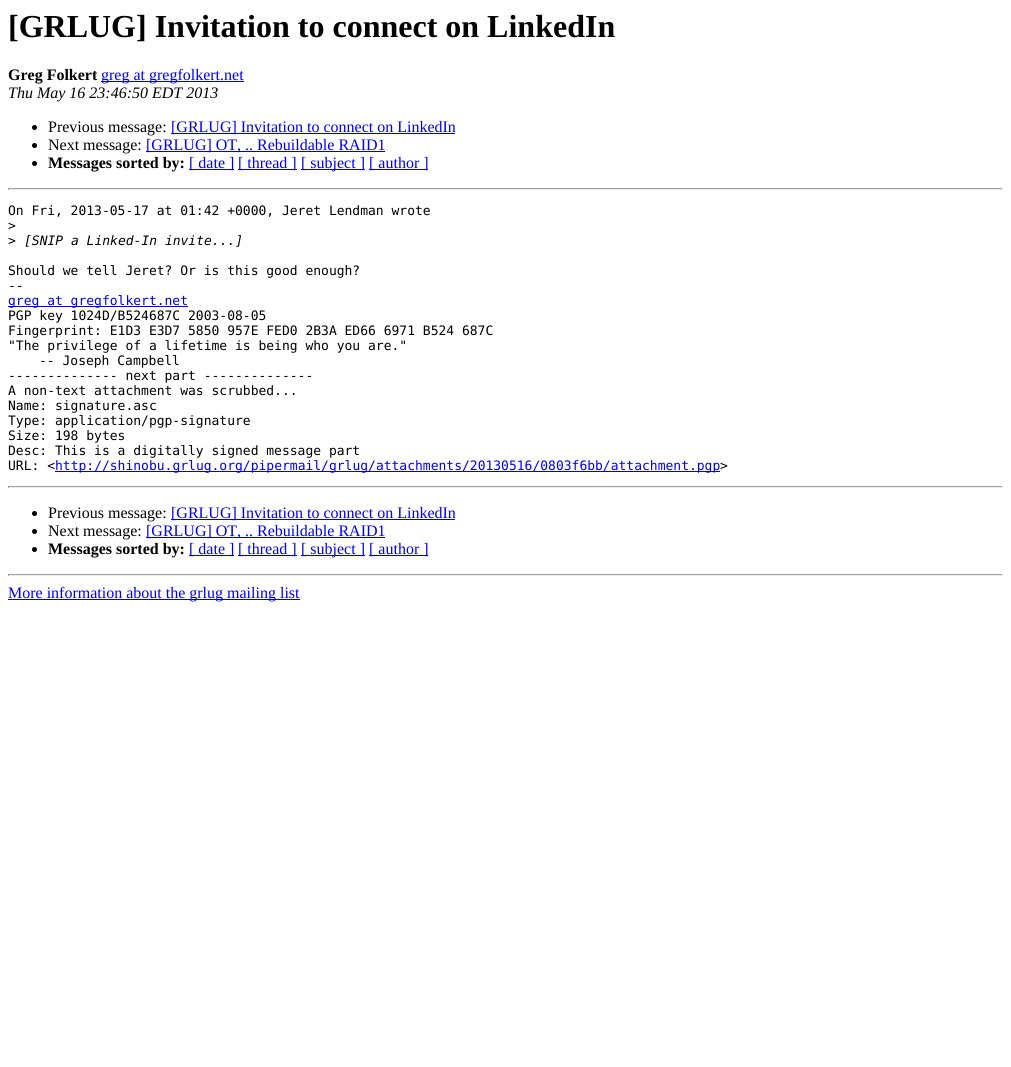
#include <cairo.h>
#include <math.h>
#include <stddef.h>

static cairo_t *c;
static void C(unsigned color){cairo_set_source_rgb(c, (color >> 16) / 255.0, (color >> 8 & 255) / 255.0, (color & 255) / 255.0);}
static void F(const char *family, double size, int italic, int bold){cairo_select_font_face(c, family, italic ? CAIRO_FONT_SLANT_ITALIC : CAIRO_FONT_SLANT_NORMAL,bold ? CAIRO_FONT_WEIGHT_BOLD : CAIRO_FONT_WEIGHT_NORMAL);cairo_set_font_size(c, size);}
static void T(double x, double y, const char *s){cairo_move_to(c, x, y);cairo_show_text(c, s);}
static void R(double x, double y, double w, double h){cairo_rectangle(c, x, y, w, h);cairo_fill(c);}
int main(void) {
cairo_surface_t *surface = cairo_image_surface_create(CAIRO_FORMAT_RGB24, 1011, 1067);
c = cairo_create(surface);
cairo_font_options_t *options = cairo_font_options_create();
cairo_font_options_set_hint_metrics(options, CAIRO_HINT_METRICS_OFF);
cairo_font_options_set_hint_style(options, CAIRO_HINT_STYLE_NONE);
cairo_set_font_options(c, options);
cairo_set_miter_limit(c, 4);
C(0xffffff);
cairo_paint(c);
F("Liberation Serif",32,0,1);
C(0x000000);
T(8,37,"[GRLUG] Invitation to connect on LinkedIn");
F("Liberation Serif",16,0,1);
T(8,80,"Greg Folkert");
C(0x0000ee);
R(101,81,143,1);
F("Liberation Serif",16,0,0);
T(101,80,"greg at gregfolkert.net");
F("Liberation Serif",16,1,0);
C(0x000000);
T(8,98,"Thu May 16 23:46:50 EDT 2013");
cairo_new_path(c);
cairo_arc(c,34.5,127.5,2.5,0,2 * M_PI);
cairo_fill(c);
F("Liberation Serif",16,0,0);
T(48,132,"Previous message:");
C(0x0000ee);
R(171,133,284,1);
T(171,132,"[GRLUG] Invitation to connect on LinkedIn");
C(0x000000);
cairo_new_path(c);
cairo_arc(c,34.5,145.5,2.5,0,2 * M_PI);
cairo_fill(c);
T(48,150,"Next message:");
C(0x0000ee);
R(146,151,239,1);
T(146,150,"[GRLUG] OT, .. Rebuildable RAID1");
C(0x000000);
cairo_new_path(c);
cairo_arc(c,34.5,163.5,2.5,0,2 * M_PI);
cairo_fill(c);
F("Liberation Serif",16,0,1);
T(48,168,"Messages sorted by:");
C(0x0000ee);
R(189,169,45,1);
F("Liberation Serif",16,0,0);
T(189,168,"[ date ]");
R(238,169,59,1);
T(238,168,"[ thread ]");
R(301,169,64,1);
T(301,168,"[ subject ]");
R(369,169,59,1);
T(369,168,"[ author ]");
C(0x9f9f9f);
R(8,188,995,1);
C(0xeeeeee);
R(1002,188,1,2);
R(8,189,995,1);
C(0x9f9f9f);
R(8,188,1,2);
F("DejaVu Sans Mono",13,0,0);
C(0x000000);
T(8,215,"On Fri, 2013-05-17 at 01:42 +0000, Jeret Lendman wrote");
T(8,230,">");
T(8,245,">");
F("DejaVu Sans Mono",13,1,0);
T(24,245,"[SNIP a Linked-In invite...]");
F("DejaVu Sans Mono",13,0,0);
T(8,275,"Should we tell Jeret? Or is this good enough?");
T(8,290,"--");
C(0x0000ee);
R(8,306,180,1);
T(8,305,"greg at gregfolkert.net");
C(0x000000);
T(8,320,"PGP key 1024D/B524687C 2003-08-05");
T(8,335,"Fingerprint: E1D3 E3D7 5850 957E FED0 2B3A ED66 6971 B524 687C");
T(8,350,"\"The privilege of a lifetime is being who you are.\"");
T(39,365,"-- Joseph Campbell");
T(8,380,"-------------- next part --------------");
T(8,395,"A non-text attachment was scrubbed...");
T(8,410,"Name: signature.asc");
T(8,425,"Type: application/pgp-signature");
T(8,440,"Size: 198 bytes");
T(8,455,"Desc: This is a digitally signed message part");
T(8,470,"URL: <");
C(0x0000ee);
R(55,471,665,1);
T(55,470,"http://shinobu.grlug.org/pipermail/grlug/attachments/20130516/0803f6bb/attachment.pgp");
C(0x000000);
T(720,470,">");
C(0x9f9f9f);
R(8,486,995,1);
C(0xeeeeee);
R(1002,486,1,2);
R(8,487,995,1);
C(0x9f9f9f);
R(8,486,1,2);
C(0x000000);
cairo_new_path(c);
cairo_arc(c,34.5,513.5,2.5,0,2 * M_PI);
cairo_fill(c);
F("Liberation Serif",16,0,0);
T(48,518,"Previous message:");
C(0x0000ee);
R(171,519,284,1);
T(171,518,"[GRLUG] Invitation to connect on LinkedIn");
C(0x000000);
cairo_new_path(c);
cairo_arc(c,34.5,531.5,2.5,0,2 * M_PI);
cairo_fill(c);
T(48,536,"Next message:");
C(0x0000ee);
R(146,537,239,1);
T(146,536,"[GRLUG] OT, .. Rebuildable RAID1");
C(0x000000);
cairo_new_path(c);
cairo_arc(c,34.5,549.5,2.5,0,2 * M_PI);
cairo_fill(c);
F("Liberation Serif",16,0,1);
T(48,554,"Messages sorted by:");
C(0x0000ee);
R(189,555,45,1);
F("Liberation Serif",16,0,0);
T(189,554,"[ date ]");
R(238,555,59,1);
T(238,554,"[ thread ]");
R(301,555,64,1);
T(301,554,"[ subject ]");
R(369,555,59,1);
T(369,554,"[ author ]");
C(0x9f9f9f);
R(8,574,995,1);
C(0xeeeeee);
R(1002,574,1,2);
R(8,575,995,1);
C(0x9f9f9f);
R(8,574,1,2);
C(0x0000ee);
R(8,599,292,1);
T(8,598,"More information about the grlug mailing list");
cairo_surface_write_to_png(surface, "o.png");
cairo_font_options_destroy(options);
cairo_destroy(c);
cairo_surface_destroy(surface);
return 0;
}
